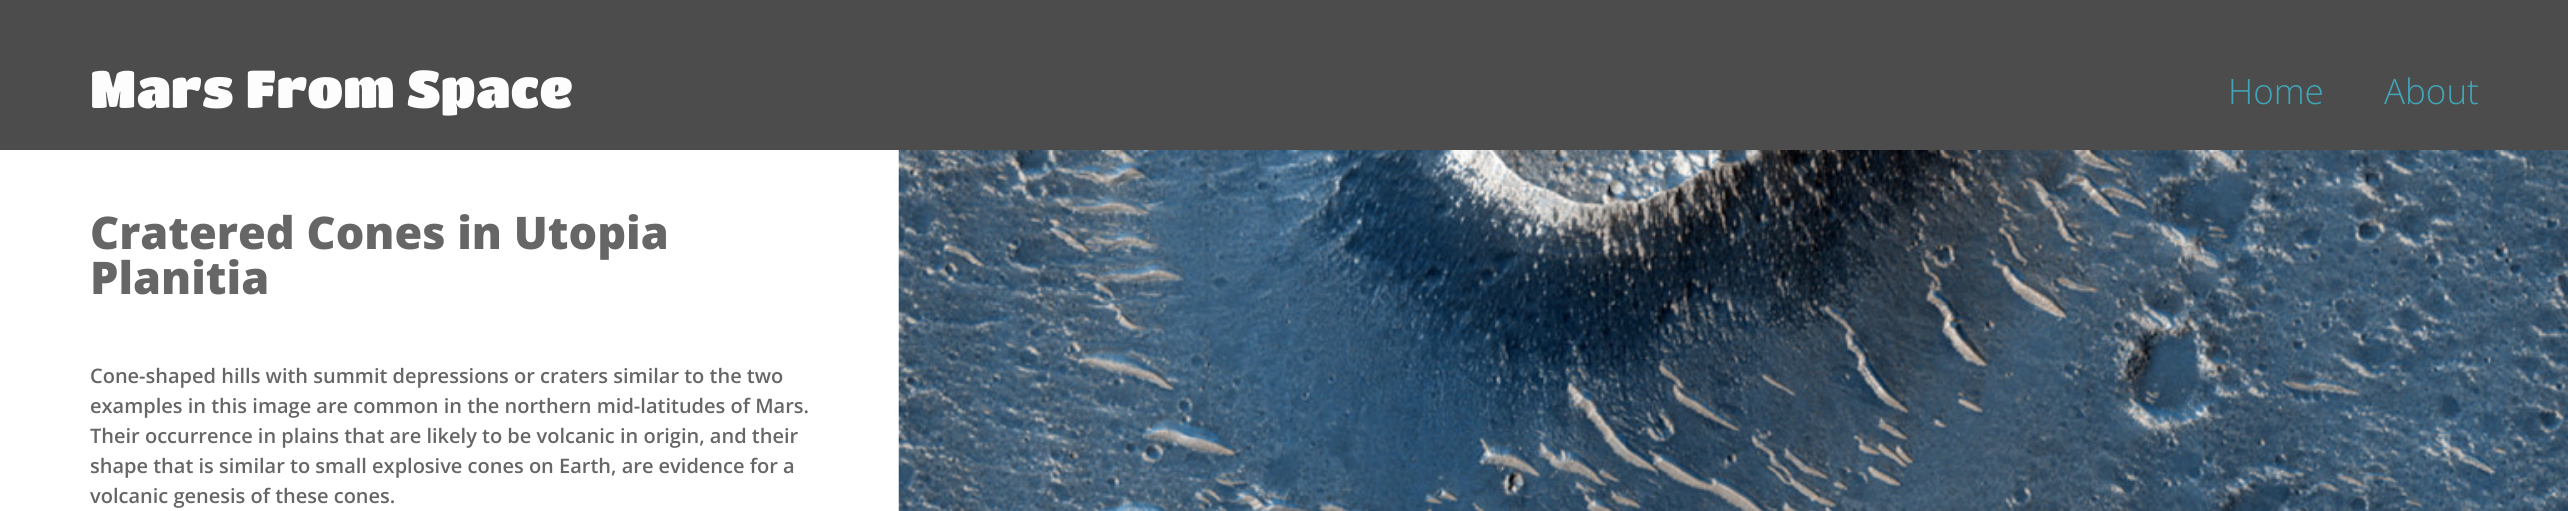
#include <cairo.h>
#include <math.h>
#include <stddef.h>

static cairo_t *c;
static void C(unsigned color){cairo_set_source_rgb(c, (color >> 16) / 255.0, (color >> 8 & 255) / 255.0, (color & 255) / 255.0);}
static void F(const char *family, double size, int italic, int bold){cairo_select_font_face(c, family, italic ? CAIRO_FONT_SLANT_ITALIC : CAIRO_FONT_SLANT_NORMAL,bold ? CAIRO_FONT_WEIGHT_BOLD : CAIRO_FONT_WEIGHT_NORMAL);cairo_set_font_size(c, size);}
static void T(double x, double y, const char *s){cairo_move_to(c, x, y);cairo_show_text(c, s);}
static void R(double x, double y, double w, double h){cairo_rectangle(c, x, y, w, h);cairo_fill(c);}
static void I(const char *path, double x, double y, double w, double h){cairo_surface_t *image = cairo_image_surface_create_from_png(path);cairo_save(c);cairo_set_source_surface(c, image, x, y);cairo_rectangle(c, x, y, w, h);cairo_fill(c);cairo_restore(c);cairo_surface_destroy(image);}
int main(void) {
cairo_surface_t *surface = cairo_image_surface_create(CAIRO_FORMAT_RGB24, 2568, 511);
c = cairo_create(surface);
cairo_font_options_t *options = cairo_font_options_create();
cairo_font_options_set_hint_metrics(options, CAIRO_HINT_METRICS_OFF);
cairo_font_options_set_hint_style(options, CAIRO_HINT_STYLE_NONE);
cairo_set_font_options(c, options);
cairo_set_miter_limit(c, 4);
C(0xffffff);
cairo_paint(c);
C(0x4c4c4c);
R(0,0,2568,150);
F("Titan One",52.5,0,0);
C(0xfdfdfd);
T(90,108,"Mars From Space");
F("Open Sans Light",35,0,0);
C(0x40a5b8);
T(2228,104,"Home");
T(2384,104,"About");
F("Open Sans ExtraBold",45,0,0);
C(0x666666);
T(90,249,"Cratered Cones in Utopia");
T(90,294,"Planitia");
F("Open Sans SemiBold",20,0,0);
T(90,383,"Cone-shaped hills with summit depressions or craters similar to the two");
T(90,413,"examples in this image are common in the northern mid-latitudes of Mars.");
T(90,443,"Their occurrence in plains that are likely to be volcanic in origin, and their");
T(90,473,"shape that is similar to small explosive cones on Earth, are evidence for a");
T(90,503,"volcanic genesis of these cones.");
I("1.png",898,150,1670,361);
cairo_surface_write_to_png(surface, "o.png");
cairo_font_options_destroy(options);
cairo_destroy(c);
cairo_surface_destroy(surface);
return 0;
}
